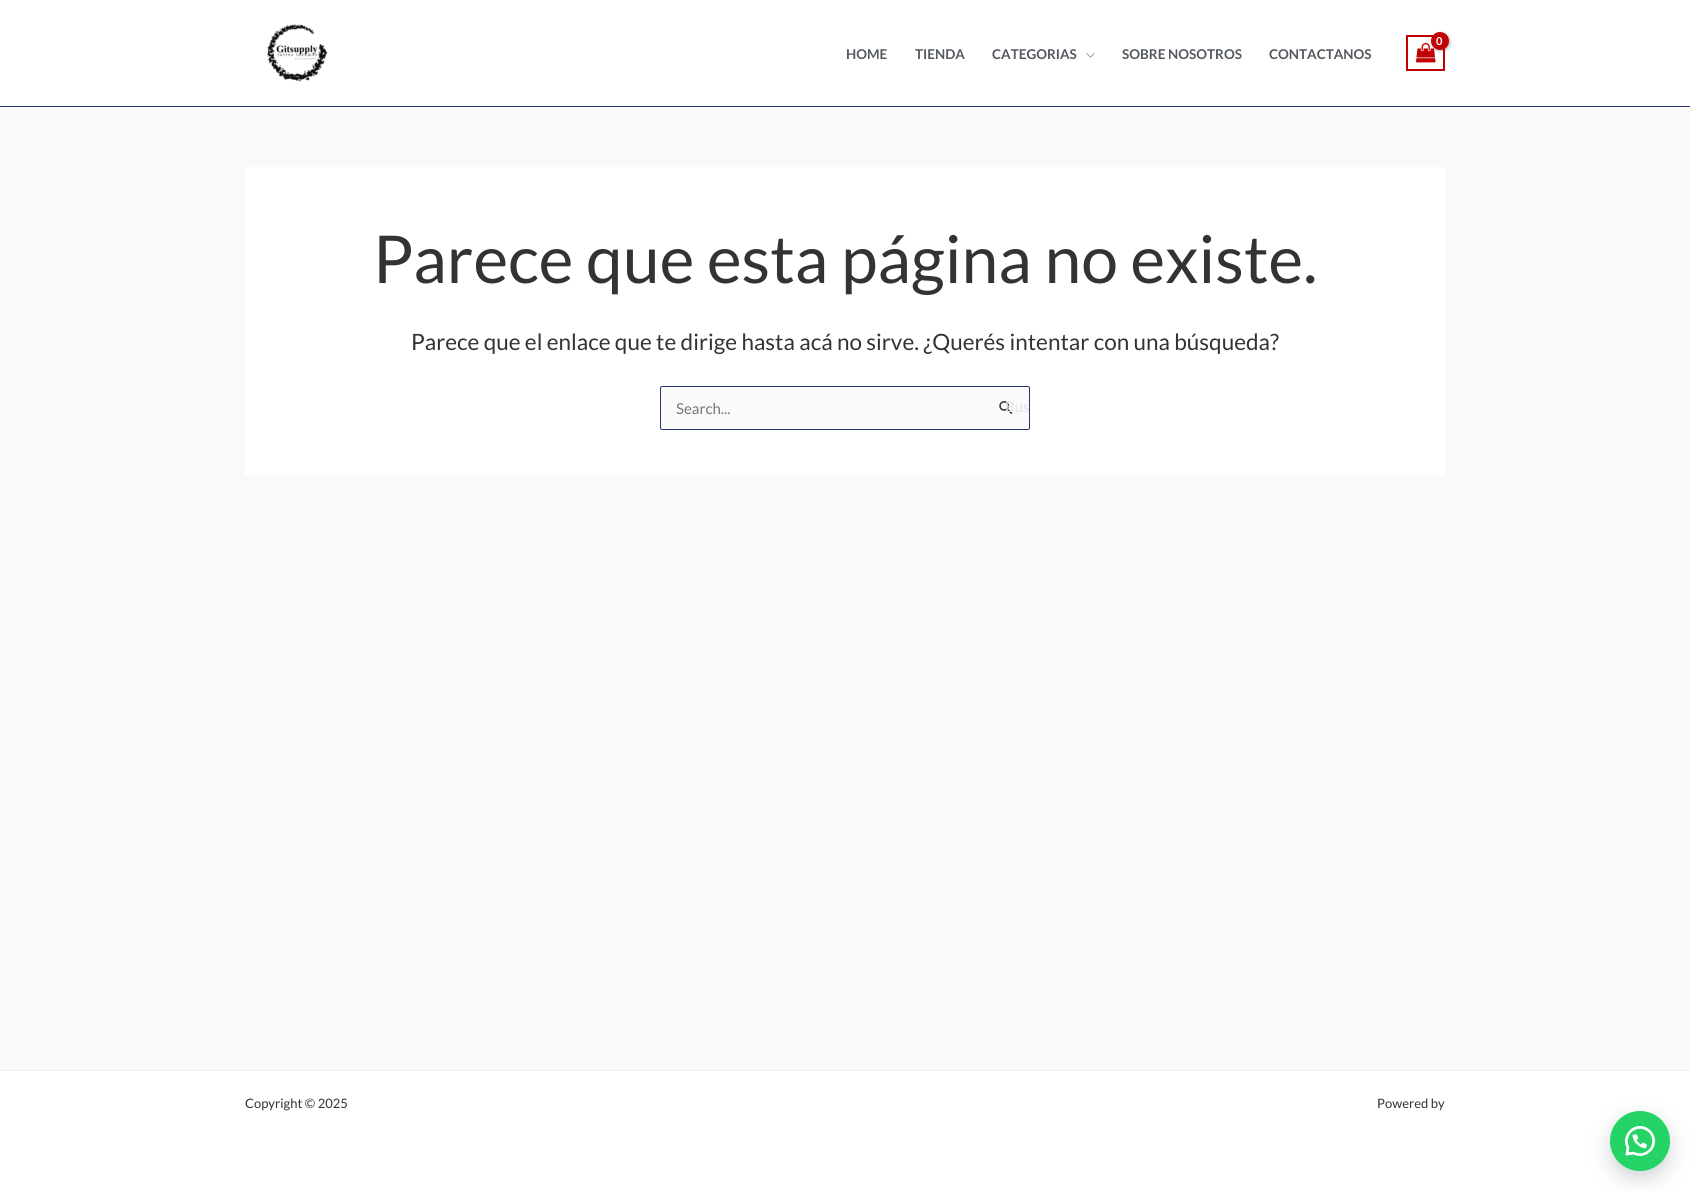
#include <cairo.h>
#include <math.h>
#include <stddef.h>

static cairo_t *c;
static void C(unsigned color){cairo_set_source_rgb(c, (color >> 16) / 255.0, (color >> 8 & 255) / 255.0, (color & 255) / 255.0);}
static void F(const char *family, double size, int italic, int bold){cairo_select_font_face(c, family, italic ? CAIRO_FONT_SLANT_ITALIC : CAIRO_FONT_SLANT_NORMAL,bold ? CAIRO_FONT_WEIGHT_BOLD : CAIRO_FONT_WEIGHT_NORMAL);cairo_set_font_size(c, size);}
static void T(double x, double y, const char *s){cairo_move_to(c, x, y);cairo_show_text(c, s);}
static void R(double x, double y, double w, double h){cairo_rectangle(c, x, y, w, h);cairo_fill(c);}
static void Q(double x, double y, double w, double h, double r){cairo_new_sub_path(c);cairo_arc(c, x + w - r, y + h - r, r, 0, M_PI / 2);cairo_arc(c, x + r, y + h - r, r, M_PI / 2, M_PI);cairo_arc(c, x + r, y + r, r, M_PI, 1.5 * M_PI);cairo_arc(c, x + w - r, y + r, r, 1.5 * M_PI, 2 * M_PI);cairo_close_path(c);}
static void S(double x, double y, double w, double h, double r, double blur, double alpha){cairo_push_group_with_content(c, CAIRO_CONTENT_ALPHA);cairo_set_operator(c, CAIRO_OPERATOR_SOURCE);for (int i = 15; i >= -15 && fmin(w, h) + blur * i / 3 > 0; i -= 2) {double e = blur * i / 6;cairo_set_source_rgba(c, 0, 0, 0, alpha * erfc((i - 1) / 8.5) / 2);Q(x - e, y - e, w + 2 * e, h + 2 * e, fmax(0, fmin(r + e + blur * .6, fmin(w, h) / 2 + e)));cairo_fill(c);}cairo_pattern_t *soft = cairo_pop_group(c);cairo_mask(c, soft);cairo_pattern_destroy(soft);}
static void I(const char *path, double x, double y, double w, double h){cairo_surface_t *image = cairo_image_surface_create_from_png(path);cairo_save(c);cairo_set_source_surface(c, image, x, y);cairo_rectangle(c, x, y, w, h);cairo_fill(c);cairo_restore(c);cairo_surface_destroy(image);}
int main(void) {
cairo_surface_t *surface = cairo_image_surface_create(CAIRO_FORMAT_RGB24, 1690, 1191);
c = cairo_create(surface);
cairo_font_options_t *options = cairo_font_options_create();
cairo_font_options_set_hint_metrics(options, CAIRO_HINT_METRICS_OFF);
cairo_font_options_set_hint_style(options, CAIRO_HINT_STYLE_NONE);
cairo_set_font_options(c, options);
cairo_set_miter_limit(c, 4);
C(0xf9f9f9);
cairo_paint(c);
C(0xffffff);
R(0,0,1690,106);
C(0x243673);
R(0,106,1690,1);
I("1.png",267,24,61,58);
cairo_rectangle(c,1407,36,37,34);
C(0xc00205);
cairo_stroke(c);
I("2.png",1416,42,20,21);
C(0x000000);
S(1432,33,18,18,9,1.5,.3);
C(0xc00205);
cairo_arc(c,1440,41,9,0,2 * M_PI);
cairo_fill(c);
F("Lato",11,0,1);
C(0xffffff);
T(1436,45,"0");
F("Lato",13.5,0,1);
C(0x54595f);
T(846,59,"HOME");
T(915,59,"TIENDA");
T(992,59,"CATEGORIAS");
I("3.png",1086,53,9,5);
T(1122,59,"SOBRE NOSOTROS");
T(1269,59,"CONTACTANOS");
C(0xffffff);
R(245,167,1200,308);
F("Lato",66,0,0);
C(0x333333);
T(373,283,"Parece que esta página no existe.");
F("Lato",22.5,0,0);
T(411,350,"Parece que el enlace que te dirige hasta acá no sirve. ¿Querés intentar con una búsqueda?");
C(0xfafafa);
Q(660.5,386.5,369,43,1.5);
cairo_fill_preserve(c);
C(0x243673);
cairo_set_line_width(c,1);
cairo_stroke(c);
I("4.png",999,401,14,13);
F("Lato",15,0,0);
C(0x757575);
T(676,414,"Search...");
C(0xe3e3e3);
T(1005,412,"Bus");
C(0xffffff);
R(0,1071,1690,120);
C(0xeeeeee);
R(0,1070,1690,1);
F("Lato",13,0,0);
C(0x333333);
T(245,1108,"Copyright © 2025");
T(1377,1108,"Powered by");
C(0x2d3e4f);
S(1615,1124,50,50,25,12.5,.3);
C(0x25d366);
cairo_arc(c,1640,1141,30,0,2 * M_PI);
cairo_fill(c);
I("5.png",1625,1126,30,30);
cairo_surface_write_to_png(surface, "o.png");
cairo_font_options_destroy(options);
cairo_destroy(c);
cairo_surface_destroy(surface);
return 0;
}
